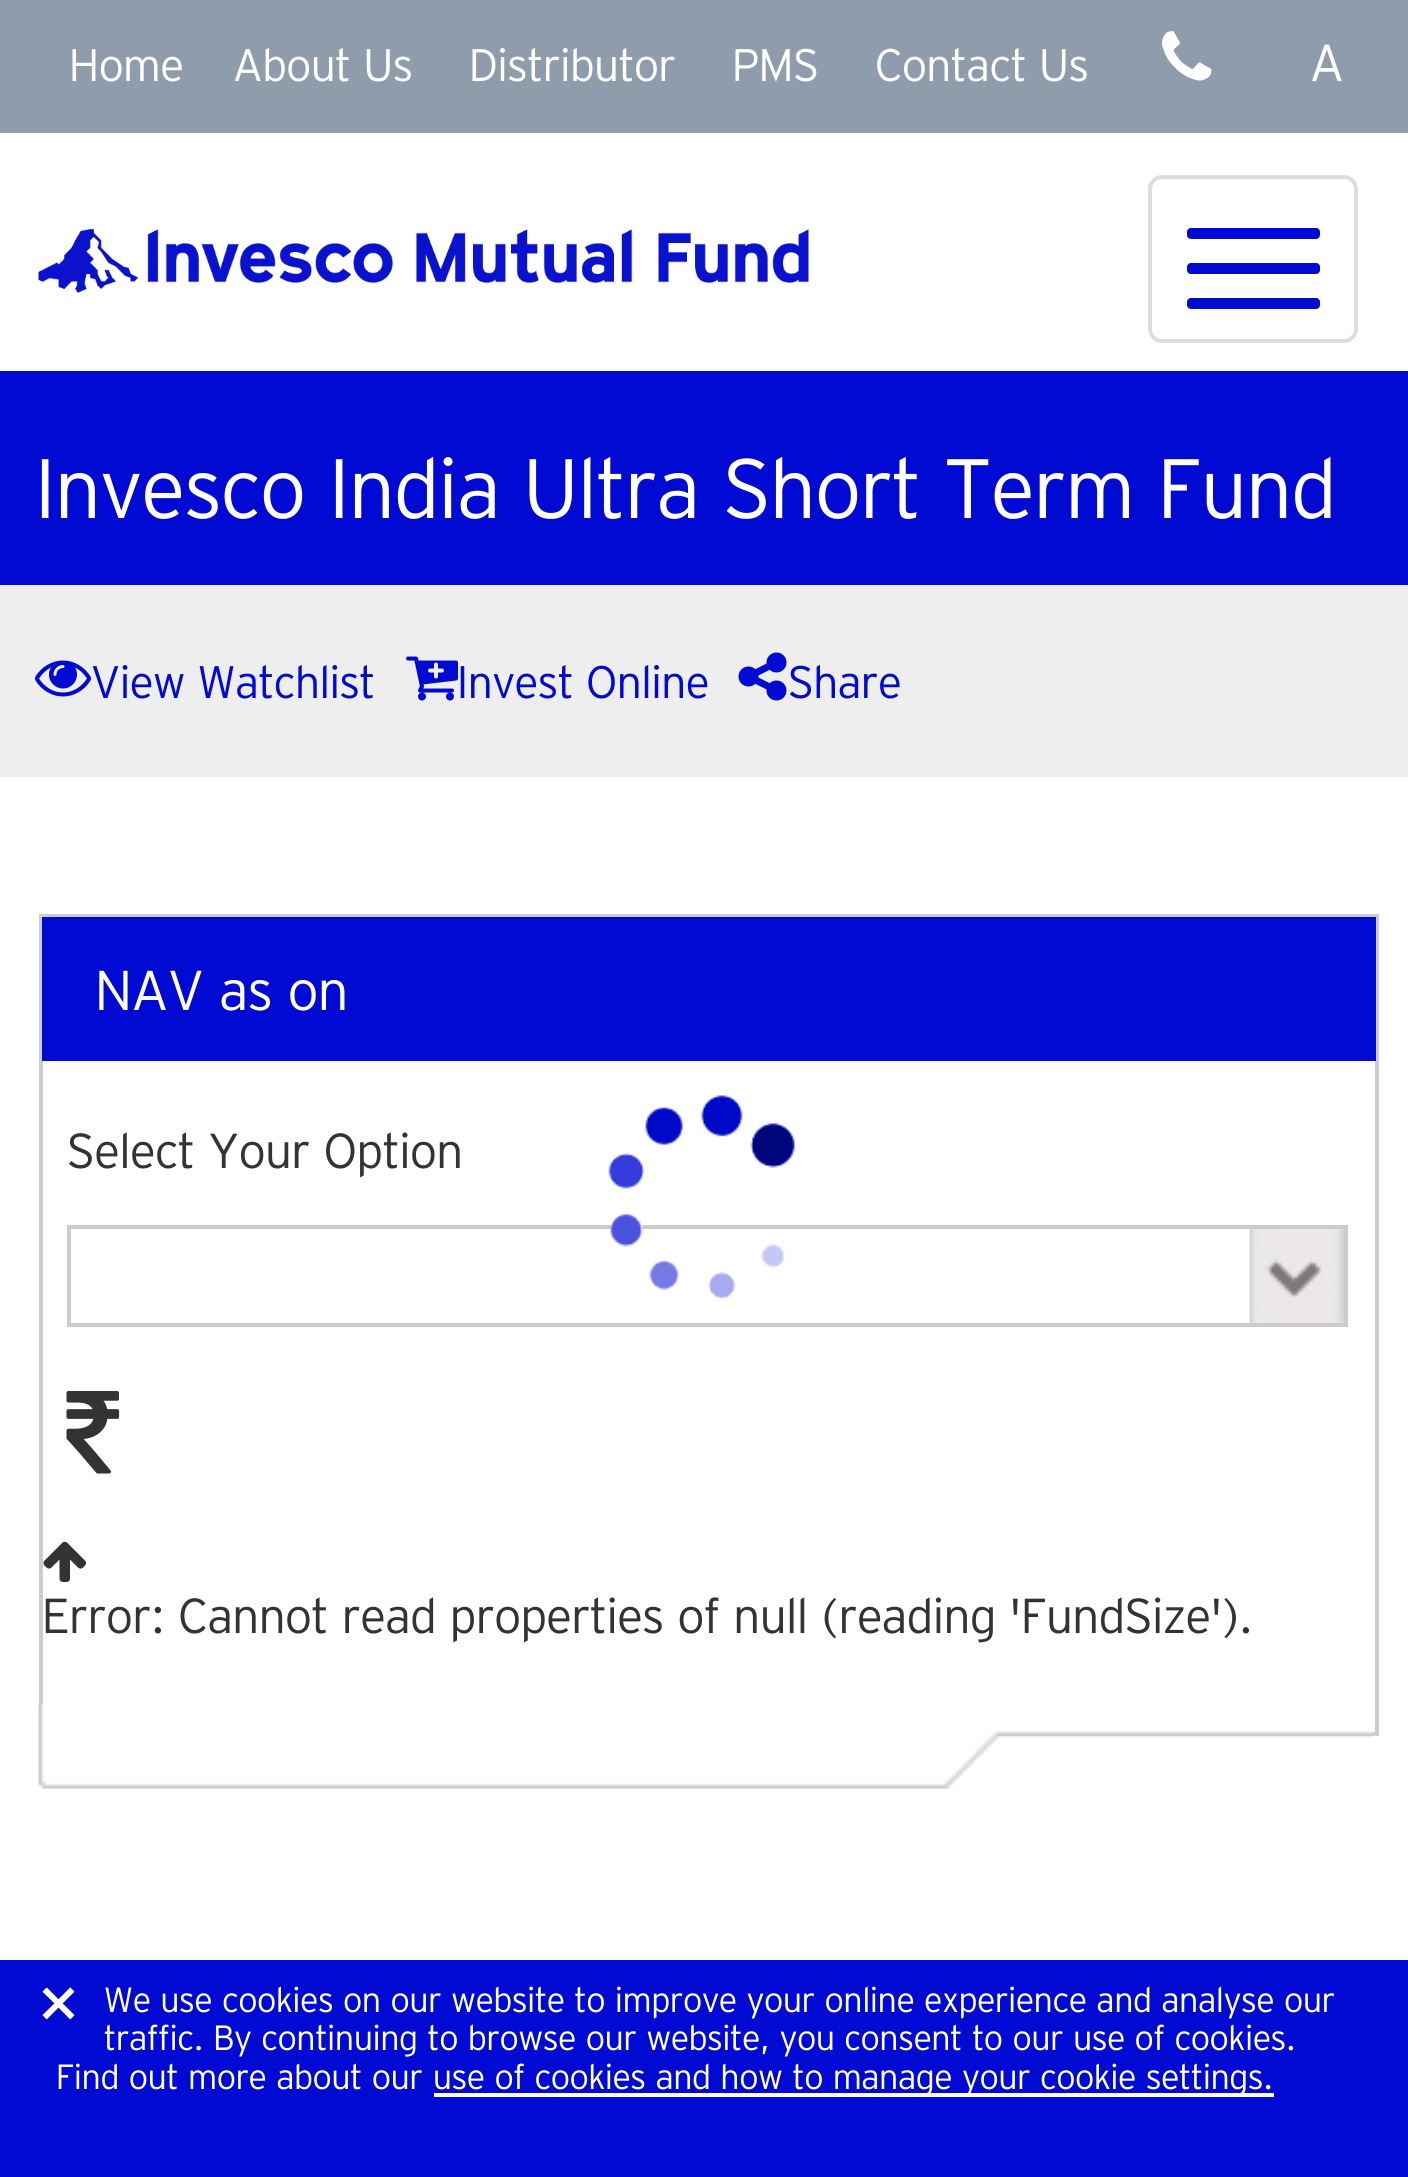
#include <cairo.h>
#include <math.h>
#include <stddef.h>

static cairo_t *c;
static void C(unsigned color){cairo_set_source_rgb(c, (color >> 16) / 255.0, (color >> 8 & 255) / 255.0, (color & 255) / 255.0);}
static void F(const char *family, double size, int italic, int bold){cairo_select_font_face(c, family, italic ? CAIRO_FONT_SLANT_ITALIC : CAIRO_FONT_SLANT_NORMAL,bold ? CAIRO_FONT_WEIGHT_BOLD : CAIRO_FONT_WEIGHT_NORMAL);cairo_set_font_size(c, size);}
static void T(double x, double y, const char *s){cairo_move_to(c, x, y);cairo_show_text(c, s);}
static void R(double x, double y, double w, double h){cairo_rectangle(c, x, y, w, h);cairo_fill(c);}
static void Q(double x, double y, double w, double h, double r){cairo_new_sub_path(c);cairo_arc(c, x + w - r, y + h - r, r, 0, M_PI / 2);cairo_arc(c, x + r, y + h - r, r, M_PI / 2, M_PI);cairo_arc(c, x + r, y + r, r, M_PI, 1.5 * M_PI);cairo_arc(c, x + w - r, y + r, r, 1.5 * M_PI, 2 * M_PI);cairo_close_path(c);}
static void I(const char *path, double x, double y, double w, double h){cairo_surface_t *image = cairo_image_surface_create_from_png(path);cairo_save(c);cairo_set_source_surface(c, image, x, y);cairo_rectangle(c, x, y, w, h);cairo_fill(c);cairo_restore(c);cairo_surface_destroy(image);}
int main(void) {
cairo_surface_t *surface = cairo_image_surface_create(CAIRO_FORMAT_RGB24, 1408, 2177);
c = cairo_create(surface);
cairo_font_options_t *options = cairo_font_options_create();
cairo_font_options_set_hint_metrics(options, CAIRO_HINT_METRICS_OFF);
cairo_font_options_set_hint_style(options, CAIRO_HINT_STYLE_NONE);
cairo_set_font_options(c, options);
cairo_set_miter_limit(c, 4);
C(0xffffff);
cairo_paint(c);
C(0x8f9cac);
R(0,0,1408,133);
I("1.png",38,229,771,64);
Q(1150,177,206,164,12);
C(0xdddddd);
cairo_set_line_width(c,4);
cairo_stroke(c);
C(0x000ad2);
Q(1187,228,133,11,4);
cairo_fill(c);
Q(1187,263,133,11,4);
cairo_fill(c);
Q(1187,298,133,11,4);
cairo_fill(c);
F("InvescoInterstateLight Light",45.5,0,0);
C(0xffffff);
T(69,81,"Home");
T(233,81,"About Us");
T(469,81,"Distributor");
T(732,81,"PMS");
T(875,81,"Contact Us");
I("2.png",1162,31,50,50);
F("InvescoInterstateLight Light",52,0,0);
T(1310,81,"A");
C(0x000ad2);
R(0,371,1408,214);
F("InvescoInterstateLight Light",84,0,0);
C(0xffffff);
T(35,518,"Invesco India Ultra Short Term Fund");
C(0xeeeeee);
R(0,585,1408,192);
I("3.png",35,660,56,37);
F("InvescoInterstateLight Light",45.5,0,0);
C(0x000ad2);
T(91,698,"View Watchlist");
I("4.png",406,656,52,45);
T(457,698,"Invest Online");
I("5.png",738,652,49,49);
T(788,698,"Share");
cairo_rectangle(c,41,916,1336,818);
C(0xcccccc);
cairo_stroke(c);
C(0x000ad2);
R(42,917,1334,144);
F("InvescoInterstateLight Light",56,0,0);
C(0xffffff);
T(95,1010,"NAV as on");
F("InvescoInterstateLight Light",49,0,0);
C(0x333333);
T(67,1168,"Select Your Option");
I("6.png",1249,1229,95,94);
cairo_rectangle(c,69,1227,1277,98);
C(0xcccccc);
cairo_stroke(c);
I("7.png",66,1391,54,83);
I("8.png",43,1541,43,41);
C(0x333333);
T(42,1633,"Error: Cannot read properties of null (reading 'FundSize').");
I("9.png",38,1704,1334,85);
I("10.png",608,1095,187,204);
C(0x000ad2);
R(0,1960,1408,217);
F("InvescoInterstateLight",63,0,1);
C(0xffffff);
T(39,2026,"×");
F("InvescoInterstateLight Light",35,0,0);
T(104,2012,"We use cookies on our website to improve your online experience and analyse our");
T(104,2050,"traffic. By continuing to browse our website, you consent to our use of cookies.");
T(56,2089,"Find out more about our");
R(434,2093,840,4);
T(433,2089,"use of cookies and how to manage your cookie settings.");
cairo_surface_write_to_png(surface, "o.png");
cairo_font_options_destroy(options);
cairo_destroy(c);
cairo_surface_destroy(surface);
return 0;
}
